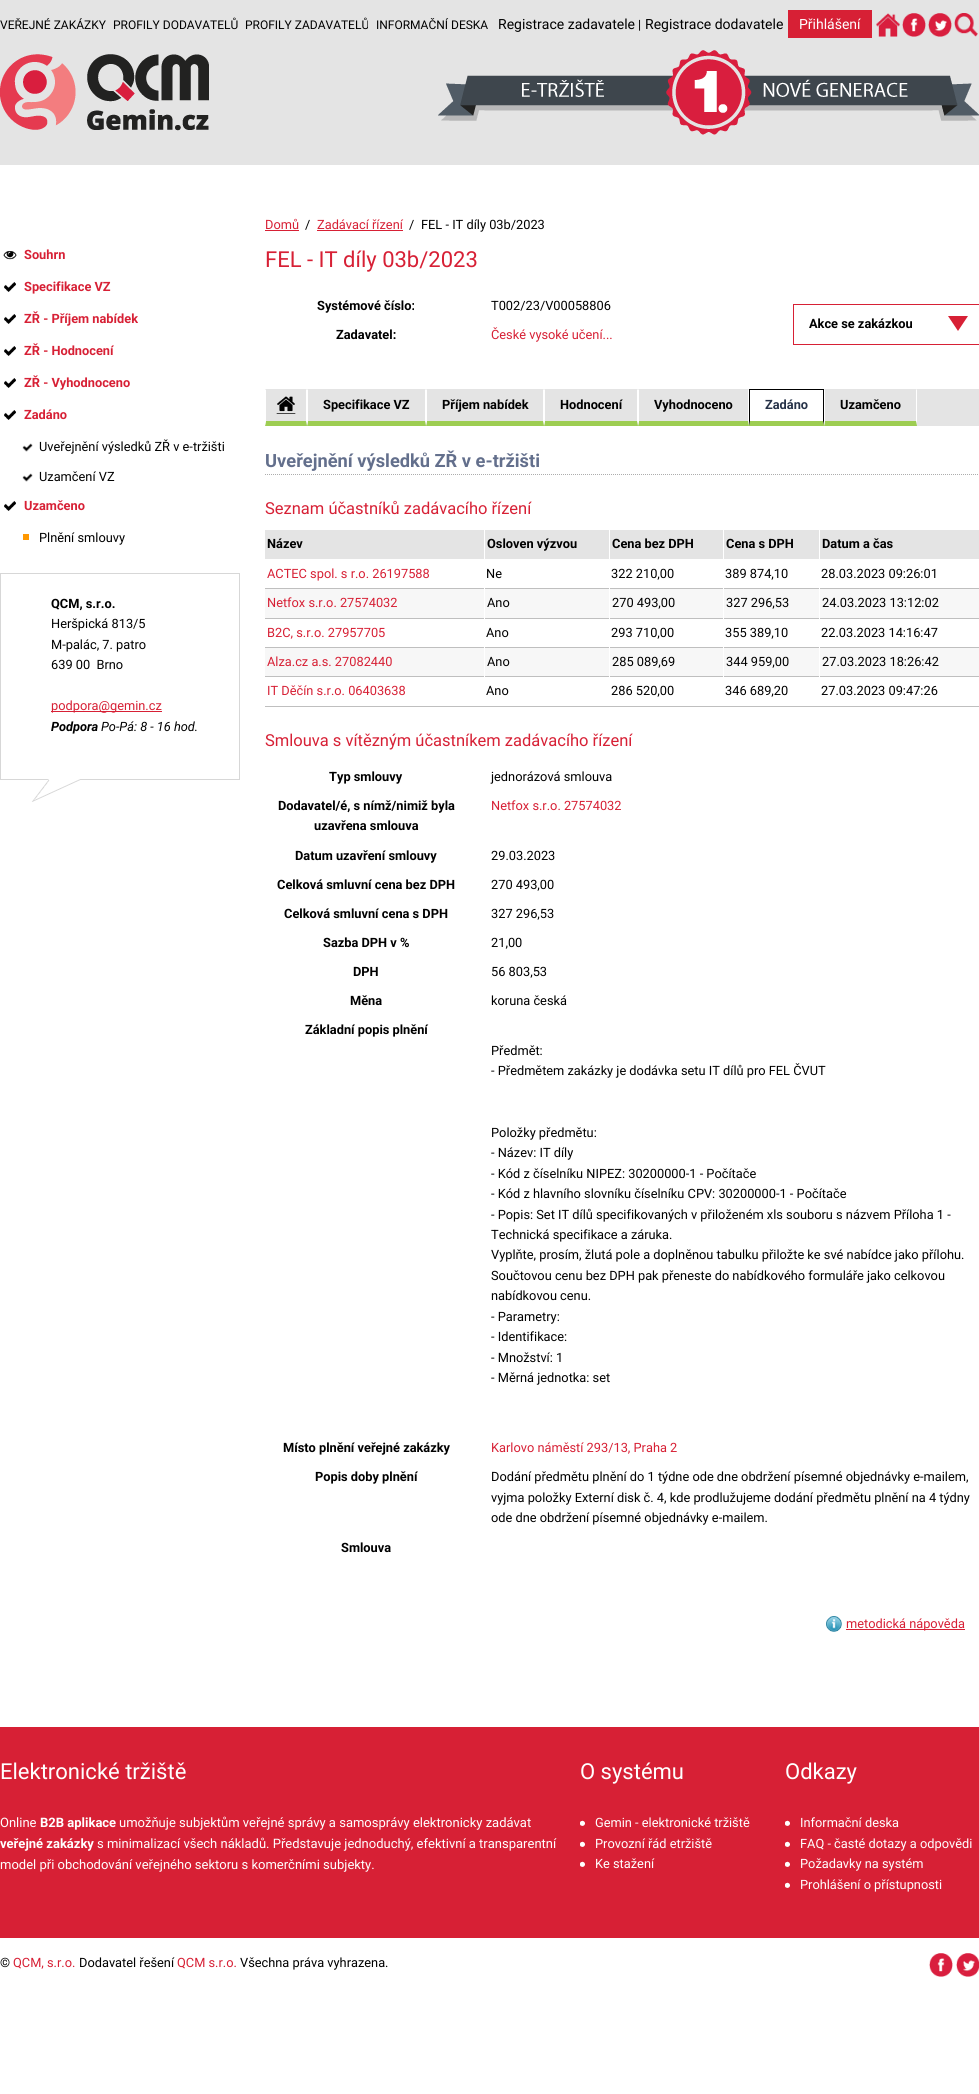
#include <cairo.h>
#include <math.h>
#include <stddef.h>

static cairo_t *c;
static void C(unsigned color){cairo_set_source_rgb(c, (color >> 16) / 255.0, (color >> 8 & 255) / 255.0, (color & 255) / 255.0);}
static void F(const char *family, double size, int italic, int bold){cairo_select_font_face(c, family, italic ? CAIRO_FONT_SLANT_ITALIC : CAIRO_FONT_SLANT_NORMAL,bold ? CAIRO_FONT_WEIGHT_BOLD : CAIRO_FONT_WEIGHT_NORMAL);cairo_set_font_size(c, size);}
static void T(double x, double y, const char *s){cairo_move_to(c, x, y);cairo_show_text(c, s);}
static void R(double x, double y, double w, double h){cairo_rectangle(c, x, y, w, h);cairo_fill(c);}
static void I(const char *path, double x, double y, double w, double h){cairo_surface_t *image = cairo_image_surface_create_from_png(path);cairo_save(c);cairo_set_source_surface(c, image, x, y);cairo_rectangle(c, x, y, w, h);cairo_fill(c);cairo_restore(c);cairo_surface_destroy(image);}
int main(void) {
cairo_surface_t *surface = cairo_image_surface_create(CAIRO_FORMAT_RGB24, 979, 2094);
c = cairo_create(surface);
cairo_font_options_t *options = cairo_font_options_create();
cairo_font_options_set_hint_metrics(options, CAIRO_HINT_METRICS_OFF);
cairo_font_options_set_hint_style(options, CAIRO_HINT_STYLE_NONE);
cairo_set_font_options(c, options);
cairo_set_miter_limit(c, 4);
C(0xffffff);
cairo_paint(c);
C(0xe4e4e4);
R(0,0,979,165);
F("Roboto",12,0,0);
C(0x000000);
T(0,29,"VEŘEJNÉ ZAKÁZKY");
T(113,29,"PROFILY DODAVATELŮ");
T(245,29,"PROFILY ZADAVATELŮ");
T(376,29,"INFORMAČNÍ DESKA");
F("Roboto",14,0,0);
T(498,29,"Registrace zadavatele");
F("Roboto",12.8,0,0);
T(638,29,"|");
F("Roboto",14,0,0);
T(645,29,"Registrace dodavatele");
C(0xd72035);
R(788,10,84,28);
C(0xffffff);
T(799,29,"Přihlášení");
I("1.png",876,13,24,24);
I("2.png",902,13,24,24);
I("3.png",928,13,24,24);
I("4.png",954,13,24,24);
I("5.png",0,54,209,77);
I("6.png",438,50,541,85);
I("7.png",3,251,14,9);
F("Roboto",12.8,0,1);
C(0xd72035);
T(24,259,"Souhrn");
I("8.png",4,282,12,10);
T(24,291,"Specifikace VZ");
I("8.png",4,314,12,10);
T(24,323,"ZŘ - Příjem nabídek");
I("8.png",4,346,12,10);
T(24,355,"ZŘ - Hodnocení");
I("8.png",4,378,12,10);
T(24,387,"ZŘ - Vyhodnoceno");
I("8.png",4,410,12,10);
T(24,419,"Zadáno");
I("9.png",22,443,11,9);
F("Roboto",12.8,0,0);
C(0x000000);
T(39,451,"Uveřejnění výsledků ZŘ v e-tržišti");
I("9.png",22,473,11,9);
T(39,481,"Uzamčení VZ");
I("8.png",4,501,12,10);
F("Roboto",12.8,0,1);
C(0xd72035);
T(24,510,"Uzamčeno");
C(0xff9800);
R(23,534,6,6);
F("Roboto",12.8,0,0);
C(0x000000);
T(39,542,"Plnění smlouvy");
I("10.png",0,779,240,23);
C(0xd7d7d7);
R(0,573,240,1);
R(239,573,1,206);
R(0,573,1,206);
F("Roboto",12.8,0,1);
C(0x000000);
T(51,608,"QCM, s.r.o.");
F("Roboto",12.8,0,0);
T(51,628,"Heršpická 813/5");
T(51,649,"M-palác, 7. patro");
T(51,669,"639 00  Brno");
C(0xd72035);
R(51,711,111,1);
T(51,710,"podpora@gemin.cz");
F("Roboto",12.8,1,1);
C(0x000000);
T(51,731,"Podpora");
F("Roboto",12.8,1,0);
T(101,731,"Po-Pá: 8 - 16 hod.");
F("Roboto",12.8,0,0);
C(0xd72035);
T(265,229,"Domů");
R(265,230,34,1);
C(0x000000);
T(305,229,"/");
C(0xd72035);
T(317,229,"Zadávací řízení");
R(317,230,86,1);
C(0x000000);
T(409,229,"/");
T(421,229,"FEL - IT díly 03b/2023");
F("Roboto",22,0,0);
C(0xd72035);
T(265,267,"FEL - IT díly 03b/2023");
F("Roboto",12.8,0,1);
C(0x000000);
T(317,310,"Systémové číslo:");
F("Roboto",12.8,0,0);
T(491,310,"T002/23/V00058806");
F("Roboto",12.8,0,1);
T(336,339,"Zadavatel:");
F("Roboto",12.8,0,0);
C(0xd72035);
T(491,339,"České vysoké učení...");
cairo_rectangle(c,793.5,304.5,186,40);
cairo_set_line_width(c,1);
cairo_stroke(c);
F("Roboto",12.8,0,1);
C(0x000000);
T(809,328,"Akce se zakázkou");
C(0xd72035);
cairo_new_path(c);
cairo_move_to(c,948,316);
cairo_line_to(c,968,316);
cairo_line_to(c,958,331);
cairo_close_path(c);
cairo_fill(c);
C(0xe4e4e4);
R(265,389,714,37);
I("11.png",276,396,20,18);
C(0xffffff);
cairo_new_path(c);
cairo_move_to(c,307,389);
cairo_line_to(c,307,426);
cairo_line_to(c,306,421);
cairo_line_to(c,306,390);
cairo_close_path(c);
cairo_fill(c);
C(0x9dcd52);
cairo_new_path(c);
cairo_move_to(c,307,426);
cairo_line_to(c,265,426);
cairo_line_to(c,266,421);
cairo_line_to(c,306,421);
cairo_close_path(c);
cairo_fill(c);
C(0xffffff);
cairo_new_path(c);
cairo_move_to(c,265,426);
cairo_line_to(c,265,389);
cairo_line_to(c,266,390);
cairo_line_to(c,266,421);
cairo_close_path(c);
cairo_fill(c);
cairo_new_path(c);
cairo_move_to(c,426,389);
cairo_line_to(c,426,426);
cairo_line_to(c,425,421);
cairo_line_to(c,425,390);
cairo_close_path(c);
cairo_fill(c);
C(0x9dcd52);
cairo_new_path(c);
cairo_move_to(c,426,426);
cairo_line_to(c,307,426);
cairo_line_to(c,308,421);
cairo_line_to(c,425,421);
cairo_close_path(c);
cairo_fill(c);
C(0xffffff);
cairo_new_path(c);
cairo_move_to(c,307,426);
cairo_line_to(c,307,389);
cairo_line_to(c,308,390);
cairo_line_to(c,308,421);
cairo_close_path(c);
cairo_fill(c);
C(0x000000);
T(323,409,"Specifikace VZ");
C(0xffffff);
cairo_new_path(c);
cairo_move_to(c,544,389);
cairo_line_to(c,544,426);
cairo_line_to(c,543,421);
cairo_line_to(c,543,390);
cairo_close_path(c);
cairo_fill(c);
C(0x9dcd52);
cairo_new_path(c);
cairo_move_to(c,544,426);
cairo_line_to(c,426,426);
cairo_line_to(c,427,421);
cairo_line_to(c,543,421);
cairo_close_path(c);
cairo_fill(c);
C(0xffffff);
cairo_new_path(c);
cairo_move_to(c,426,426);
cairo_line_to(c,426,389);
cairo_line_to(c,427,390);
cairo_line_to(c,427,421);
cairo_close_path(c);
cairo_fill(c);
C(0x000000);
T(442,409,"Příjem nabídek");
C(0xffffff);
cairo_new_path(c);
cairo_move_to(c,638,389);
cairo_line_to(c,638,426);
cairo_line_to(c,637,421);
cairo_line_to(c,637,390);
cairo_close_path(c);
cairo_fill(c);
C(0x9dcd52);
cairo_new_path(c);
cairo_move_to(c,638,426);
cairo_line_to(c,544,426);
cairo_line_to(c,545,421);
cairo_line_to(c,637,421);
cairo_close_path(c);
cairo_fill(c);
C(0xffffff);
cairo_new_path(c);
cairo_move_to(c,544,426);
cairo_line_to(c,544,389);
cairo_line_to(c,545,390);
cairo_line_to(c,545,421);
cairo_close_path(c);
cairo_fill(c);
C(0x000000);
T(560,409,"Hodnocení");
C(0xffffff);
cairo_new_path(c);
cairo_move_to(c,749,389);
cairo_line_to(c,749,426);
cairo_line_to(c,748,421);
cairo_line_to(c,748,390);
cairo_close_path(c);
cairo_fill(c);
C(0x9dcd52);
cairo_new_path(c);
cairo_move_to(c,749,426);
cairo_line_to(c,638,426);
cairo_line_to(c,639,421);
cairo_line_to(c,748,421);
cairo_close_path(c);
cairo_fill(c);
C(0xffffff);
cairo_new_path(c);
cairo_move_to(c,638,426);
cairo_line_to(c,638,389);
cairo_line_to(c,639,390);
cairo_line_to(c,639,421);
cairo_close_path(c);
cairo_fill(c);
C(0x000000);
T(654,409,"Vyhodnoceno");
C(0xffffff);
R(750,390,73,31);
C(0x000000);
R(749,389,75,1);
cairo_new_path(c);
cairo_move_to(c,824,389);
cairo_line_to(c,824,426);
cairo_line_to(c,823,421);
cairo_line_to(c,823,390);
cairo_close_path(c);
cairo_fill(c);
C(0x9dcd52);
cairo_new_path(c);
cairo_move_to(c,824,426);
cairo_line_to(c,749,426);
cairo_line_to(c,750,421);
cairo_line_to(c,823,421);
cairo_close_path(c);
cairo_fill(c);
C(0x000000);
cairo_new_path(c);
cairo_move_to(c,749,426);
cairo_line_to(c,749,389);
cairo_line_to(c,750,390);
cairo_line_to(c,750,421);
cairo_close_path(c);
cairo_fill(c);
C(0x263248);
T(765,409,"Zadáno");
C(0xffffff);
cairo_new_path(c);
cairo_move_to(c,917,389);
cairo_line_to(c,917,426);
cairo_line_to(c,916,421);
cairo_line_to(c,916,390);
cairo_close_path(c);
cairo_fill(c);
C(0x9dcd52);
cairo_new_path(c);
cairo_move_to(c,917,426);
cairo_line_to(c,824,426);
cairo_line_to(c,825,421);
cairo_line_to(c,916,421);
cairo_close_path(c);
cairo_fill(c);
C(0xffffff);
cairo_new_path(c);
cairo_move_to(c,824,426);
cairo_line_to(c,824,389);
cairo_line_to(c,825,390);
cairo_line_to(c,825,421);
cairo_close_path(c);
cairo_fill(c);
C(0x000000);
T(840,409,"Uzamčeno");
cairo_new_path(c);
cairo_move_to(c,265,474.5);
cairo_line_to(c,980,474.5);
C(0xadadad);
cairo_set_dash(c,(double[]){1,1},2,0);
cairo_stroke(c);
F("Roboto",18.25,0,1);
C(0x636f8c);
T(265,467,"Uveřejnění výsledků ZŘ v e-tržišti");
F("Roboto",16.5,0,0);
C(0xd72035);
T(265,514,"Seznam účastníků zadávacího řízení");
C(0xe4e4e4);
R(265,530,714,29);
C(0xffffff);
R(484,530,1,30);
F("Roboto",12.8,0,1);
C(0x000000);
T(267,548,"Název");
C(0xffffff);
R(609,530,1,30);
C(0x000000);
T(487,548,"Osloven výzvou");
C(0xffffff);
R(723,530,1,30);
C(0x000000);
T(612,548,"Cena bez DPH");
C(0xffffff);
R(819,530,1,30);
C(0x000000);
T(726,548,"Cena s DPH");
T(822,548,"Datum a čas");
C(0xbfbfbf);
R(265,588,714,1);
F("Roboto",12.8,0,0);
C(0xd72035);
T(267,578,"ACTEC spol. s r.o. 26197588");
C(0x000000);
T(486,578,"Ne");
T(611,578,"322 210,00");
T(725,578,"389 874,10");
T(821,578,"28.03.2023 09:26:01");
C(0xf7f7f7);
R(265,589,714,29);
C(0xbfbfbf);
R(265,618,714,1);
C(0xffffff);
R(484,588,1,31);
C(0xd72035);
T(267,607,"Netfox s.r.o. 27574032");
C(0xffffff);
R(609,588,1,31);
C(0x000000);
T(487,607,"Ano");
C(0xffffff);
R(723,588,1,31);
C(0x000000);
T(612,607,"270 493,00");
C(0xffffff);
R(819,588,1,31);
C(0x000000);
T(726,607,"327 296,53");
T(822,607,"24.03.2023 13:12:02");
C(0xbfbfbf);
R(265,647,714,1);
C(0xd72035);
T(267,637,"B2C, s.r.o. 27957705");
C(0x000000);
T(486,637,"Ano");
T(611,637,"293 710,00");
T(725,637,"355 389,10");
T(821,637,"22.03.2023 14:16:47");
C(0xf7f7f7);
R(265,648,714,28);
C(0xbfbfbf);
R(265,676,714,1);
C(0xffffff);
R(484,647,1,30);
C(0xd72035);
T(267,666,"Alza.cz a.s. 27082440");
C(0xffffff);
R(609,647,1,30);
C(0x000000);
T(487,666,"Ano");
C(0xffffff);
R(723,647,1,30);
C(0x000000);
T(612,666,"285 089,69");
C(0xffffff);
R(819,647,1,30);
C(0x000000);
T(726,666,"344 959,00");
T(822,666,"27.03.2023 18:26:42");
C(0xbfbfbf);
R(265,706,714,1);
C(0xd72035);
T(267,695,"IT Děčín s.r.o. 06403638");
C(0x000000);
T(486,695,"Ano");
T(611,695,"286 520,00");
T(725,695,"346 689,20");
T(821,695,"27.03.2023 09:47:26");
F("Roboto",16.5,0,0);
C(0xd72035);
T(265,746,"Smlouva s vítězným účastníkem zadávacího řízení");
F("Roboto",12.8,0,1);
C(0x000000);
T(329,781,"Typ smlouvy");
F("Roboto",12.8,0,0);
T(491,781,"jednorázová smlouva");
F("Roboto",12.8,0,1);
T(278,810,"Dodavatel/é, s nímž/nimiž byla");
T(314,830,"uzavřena smlouva");
F("Roboto",12.8,0,0);
C(0xd72035);
T(491,810,"Netfox s.r.o. 27574032");
F("Roboto",12.8,0,1);
C(0x000000);
T(295,860,"Datum uzavření smlouvy");
F("Roboto",12.8,0,0);
T(491,860,"29.03.2023");
F("Roboto",12.8,0,1);
T(277,889,"Celková smluvní cena bez DPH");
F("Roboto",12.8,0,0);
T(491,889,"270 493,00");
F("Roboto",12.8,0,1);
T(284,918,"Celková smluvní cena s DPH");
F("Roboto",12.8,0,0);
T(491,918,"327 296,53");
F("Roboto",12.8,0,1);
T(323,947,"Sazba DPH v %");
F("Roboto",12.8,0,0);
T(491,947,"21,00");
F("Roboto",12.8,0,1);
T(353,976,"DPH");
F("Roboto",12.8,0,0);
T(491,976,"56 803,53");
F("Roboto",12.8,0,1);
T(350,1005,"Měna");
F("Roboto",12.8,0,0);
T(491,1005,"koruna česká");
F("Roboto",12.8,0,1);
T(305,1034,"Základní popis plnění");
F("Roboto",12.8,0,0);
T(491,1055,"Předmět:");
T(491,1075,"- Předmětem zakázky je dodávka setu IT dílů pro FEL ČVUT");
T(491,1137,"Položky předmětu:");
T(491,1157,"- Název: IT díly");
T(491,1178,"- Kód z číselníku NIPEZ: 30200000-1 - Počítače");
T(491,1198,"- Kód z hlavního slovníku číselníku CPV: 30200000-1 - Počítače");
T(491,1219,"- Popis: Set IT dílů specifikovaných v přiloženém xls souboru s názvem Příloha 1 -");
T(491,1239,"Technická specifikace a záruka.");
T(491,1259,"Vyplňte, prosím, žlutá pole a doplněnou tabulku přiložte ke své nabídce jako přílohu.");
T(491,1280,"Součtovou cenu bez DPH pak přeneste do nabídkového formuláře jako celkovou");
T(491,1300,"nabídkovou cenu.");
T(491,1321,"- Parametry:");
T(491,1341,"- Identifikace:");
T(491,1362,"- Množství: 1");
T(491,1382,"- Měrná jednotka: set");
F("Roboto",12.8,0,1);
T(283,1452,"Místo plnění veřejné zakázky");
F("Roboto",12.8,0,0);
C(0xd72035);
T(491,1452,"Karlovo náměstí 293/13, Praha 2");
F("Roboto",12.8,0,1);
C(0x000000);
T(315,1481,"Popis doby plnění");
F("Roboto",12.8,0,0);
T(491,1481,"Dodání předmětu plnění do 1 týdne ode dne obdržení písemné objednávky e-mailem,");
T(491,1502,"vyjma položky Externí disk č. 4, kde prodlužujeme dodání předmětu plnění na 4 týdny");
T(491,1522,"ode dne obdržení písemné objednávky e-mailem.");
F("Roboto",12.8,0,1);
T(341,1552,"Smlouva");
I("12.png",826,1616,16,16);
C(0xd72035);
R(846,1629,119,1);
F("Roboto",12.8,0,0);
T(846,1628,"metodická nápověda");
R(0,1727,979,211);
F("Roboto",22,0,0);
C(0xffffff);
T(0,1779,"Elektronické tržiště");
F("Roboto",13,0,0);
T(0,1827,"Online");
F("Roboto",13,0,1);
T(40,1827,"B2B aplikace");
F("Roboto",13,0,0);
T(119,1827,"umožňuje subjektům veřejné správy a samosprávy elektronicky zadávat");
F("Roboto",13,0,1);
T(0,1848,"veřejné zakázky");
F("Roboto",13,0,0);
T(97,1848,"s minimalizací všech nákladů. Představuje jednoduchý, efektivní a transparentní");
T(0,1869,"model při obchodování veřejného sektoru s komerčními subjekty.");
F("Roboto",22,0,0);
T(580,1779,"O systému");
I("13.png",580,1820,5,6);
F("Roboto",12.8,0,0);
T(595,1827,"Gemin - elektronické tržiště");
I("13.png",580,1841,5,6);
T(595,1848,"Provozní řád etržiště");
I("13.png",580,1861,5,6);
T(595,1868,"Ke stažení");
F("Roboto",22,0,0);
T(785,1779,"Odkazy");
I("13.png",785,1820,5,6);
F("Roboto",12.8,0,0);
T(800,1827,"Informační deska");
I("13.png",785,1841,5,6);
T(800,1848,"FAQ - časté dotazy a odpovědi");
I("13.png",785,1861,5,6);
T(800,1868,"Požadavky na systém");
I("13.png",785,1882,5,6);
T(800,1889,"Prohlášení o přístupnosti");
C(0x000000);
T(0,1967,"©");
C(0xd72035);
T(13,1967,"QCM, s.r.o.");
C(0x000000);
T(79,1967,"Dodavatel řešení");
C(0xd72035);
T(177,1967,"QCM s.r.o.");
C(0x000000);
T(240,1967,"Všechna práva vyhrazena.");
I("14.png",929,1953,24,24);
I("15.png",956,1953,23,24);
cairo_surface_write_to_png(surface, "o.png");
cairo_font_options_destroy(options);
cairo_destroy(c);
cairo_surface_destroy(surface);
return 0;
}
